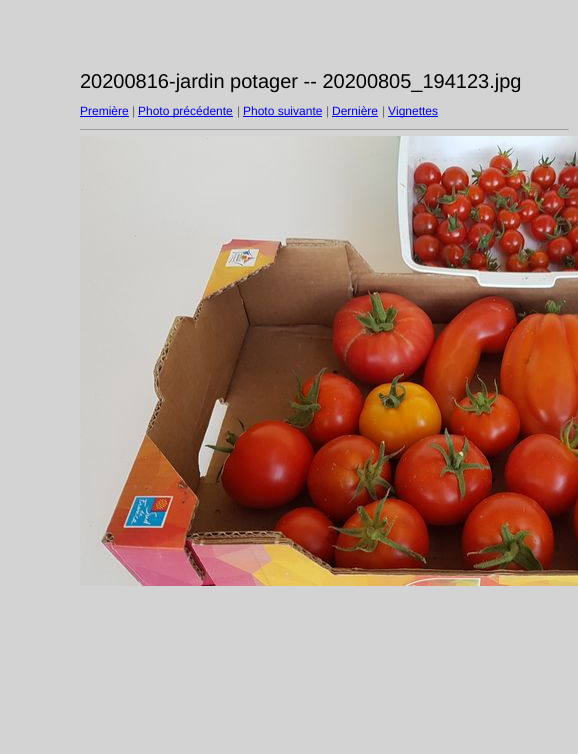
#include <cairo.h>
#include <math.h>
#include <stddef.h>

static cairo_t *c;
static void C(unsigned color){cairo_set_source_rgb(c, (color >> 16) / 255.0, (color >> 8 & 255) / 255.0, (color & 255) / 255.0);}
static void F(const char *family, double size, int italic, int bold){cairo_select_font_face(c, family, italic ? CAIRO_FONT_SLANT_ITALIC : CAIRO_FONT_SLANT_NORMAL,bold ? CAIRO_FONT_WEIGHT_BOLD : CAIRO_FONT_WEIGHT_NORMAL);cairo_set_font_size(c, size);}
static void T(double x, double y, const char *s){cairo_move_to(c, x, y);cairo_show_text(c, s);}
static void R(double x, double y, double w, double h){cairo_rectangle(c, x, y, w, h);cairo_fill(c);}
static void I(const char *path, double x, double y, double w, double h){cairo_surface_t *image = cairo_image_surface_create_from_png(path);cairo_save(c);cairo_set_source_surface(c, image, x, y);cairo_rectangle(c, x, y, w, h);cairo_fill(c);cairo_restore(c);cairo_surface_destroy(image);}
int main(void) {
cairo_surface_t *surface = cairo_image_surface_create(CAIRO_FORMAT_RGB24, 578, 754);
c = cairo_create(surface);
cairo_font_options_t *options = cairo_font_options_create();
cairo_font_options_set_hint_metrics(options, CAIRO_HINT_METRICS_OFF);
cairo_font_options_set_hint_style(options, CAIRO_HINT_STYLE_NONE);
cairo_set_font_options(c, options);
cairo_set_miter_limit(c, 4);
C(0xd3d3d3);
cairo_paint(c);
F("Liberation Sans",20,0,0);
C(0x000000);
T(80,88,"20200816-jardin potager -- 20200805_194123.jpg");
F("Liberation Sans",12,0,0);
C(0x0000ee);
T(80,115,"Première");
R(80,116,49,1);
C(0x666666);
T(132,115,"|");
C(0x0000ee);
R(138,116,95,1);
T(138,115,"Photo précédente");
C(0x666666);
T(237,115,"|");
C(0x0000ee);
T(243,115,"Photo suivante");
R(243,116,79,1);
C(0x666666);
T(326,115,"|");
C(0x0000ee);
T(332,115,"Dernière");
R(332,116,46,1);
C(0x666666);
T(382,115,"|");
C(0x0000ee);
R(388,116,50,1);
T(388,115,"Vignettes");
C(0x9f9f9f);
R(80,129,490,1);
C(0xeeeeee);
R(569,129,1,1);
I("1.png",80,136,498,450);
cairo_surface_write_to_png(surface, "o.png");
cairo_font_options_destroy(options);
cairo_destroy(c);
cairo_surface_destroy(surface);
return 0;
}
